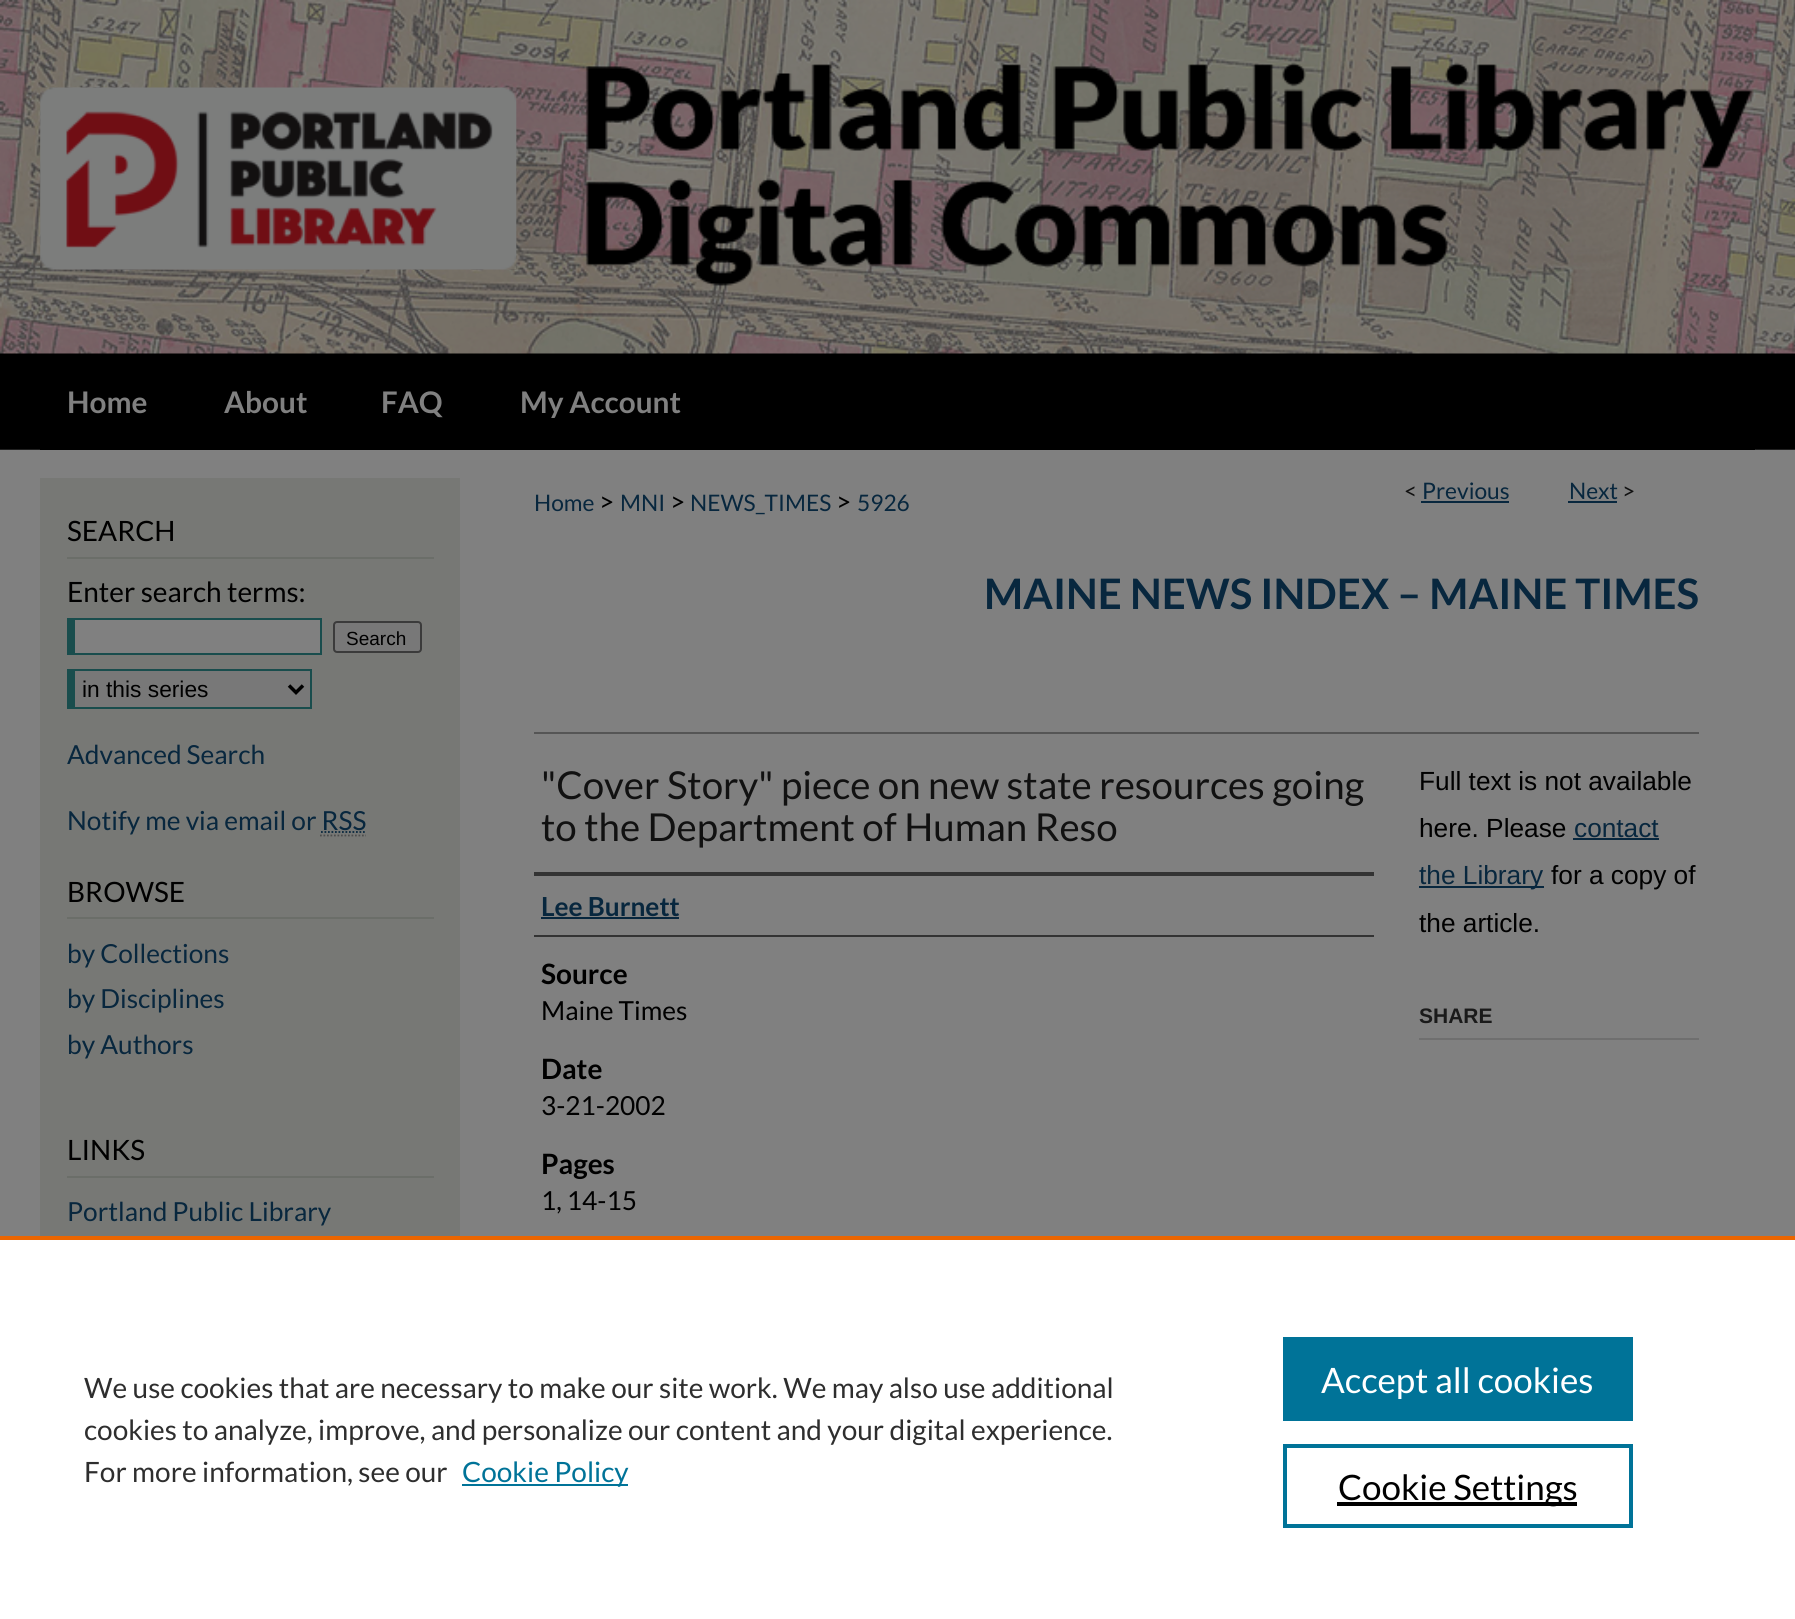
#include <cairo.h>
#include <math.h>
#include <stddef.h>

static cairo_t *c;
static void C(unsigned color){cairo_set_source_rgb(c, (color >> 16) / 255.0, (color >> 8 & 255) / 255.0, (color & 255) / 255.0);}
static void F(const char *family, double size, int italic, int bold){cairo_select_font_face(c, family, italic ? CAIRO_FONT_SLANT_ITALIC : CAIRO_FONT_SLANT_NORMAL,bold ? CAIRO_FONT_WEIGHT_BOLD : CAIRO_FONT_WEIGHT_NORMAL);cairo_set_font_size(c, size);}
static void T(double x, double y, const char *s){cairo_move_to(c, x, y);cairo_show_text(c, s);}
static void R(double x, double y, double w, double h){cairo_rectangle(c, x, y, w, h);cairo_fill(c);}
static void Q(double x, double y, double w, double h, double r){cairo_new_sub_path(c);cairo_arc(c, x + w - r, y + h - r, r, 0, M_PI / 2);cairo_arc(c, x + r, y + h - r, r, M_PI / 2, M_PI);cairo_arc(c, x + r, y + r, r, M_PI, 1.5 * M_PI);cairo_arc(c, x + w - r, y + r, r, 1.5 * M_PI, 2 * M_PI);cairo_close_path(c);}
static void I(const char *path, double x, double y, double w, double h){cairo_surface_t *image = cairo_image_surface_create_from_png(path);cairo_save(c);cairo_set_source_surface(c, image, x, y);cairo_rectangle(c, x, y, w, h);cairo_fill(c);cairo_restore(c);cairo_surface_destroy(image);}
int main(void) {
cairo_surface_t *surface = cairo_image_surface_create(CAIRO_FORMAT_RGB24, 1795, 1619);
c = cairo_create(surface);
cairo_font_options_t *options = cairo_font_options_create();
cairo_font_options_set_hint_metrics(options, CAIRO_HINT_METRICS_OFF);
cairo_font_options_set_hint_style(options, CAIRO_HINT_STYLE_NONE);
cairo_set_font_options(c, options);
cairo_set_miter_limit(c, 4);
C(0x808080);
cairo_paint(c);
I("1.png",0,0,1795,450);
I("2.png",40,87,477,183);
I("3.png",585,62,1168,224);
C(0x000000);
R(40,449,1715,1);
F("Lato",29.75,0,1);
C(0x808080);
T(67,413,"Home");
T(224,413,"About");
T(381,413,"FAQ");
T(520,413,"My Account");
I("4.png",1755,449,1,1);
C(0x777875);
R(40,478,420,758);
C(0x6b6e69);
R(67,557,367,2);
F("Lato",28,0,0);
C(0x000000);
T(67,541,"SEARCH");
T(67,602,"Enter search terms:");
C(0x808080);
R(75,620,245,33);
C(0x194d4d);
R(67,618,255,2);
R(320,618,2,37);
R(67,653,255,2);
R(67,618,8,37);
C(0x787878);
Q(334,622,87,30,3);
cairo_fill_preserve(c);
C(0x3b3b3b);
cairo_stroke(c);
F("Liberation Sans",19,0,0);
C(0x000000);
T(346,645,"Search");
C(0x787878);
R(75,671,235,36);
C(0x194d4d);
R(67,669,245,2);
R(310,669,2,40);
R(67,707,245,2);
R(67,669,8,40);
cairo_new_path(c);
cairo_move_to(c,289,685.5);
cairo_line_to(c,296,692.5);
cairo_line_to(c,303,685.5);
C(0x000000);
cairo_set_line_width(c,3.5);
cairo_stroke(c);
F("Liberation Sans",22.75,0,0);
T(82,697,"in this series");
F("Lato",26.25,0,0);
C(0x08273e);
T(67,764,"Advanced Search");
T(67,830,"Notify me via email or RSS");
cairo_new_path(c);
cairo_move_to(c,321,832);
cairo_line_to(c,366,832);
cairo_set_line_width(c,1.8);
cairo_set_dash(c,(double[]){1.75,1.75},2,0);
cairo_stroke(c);
cairo_new_path(c);
cairo_move_to(c,320,835.5);
cairo_line_to(c,366,835.5);
C(0x4d4d4d);
cairo_stroke(c);
C(0x6b6e69);
R(67,917,367,2);
F("Lato",28,0,0);
C(0x000000);
T(67,902,"BROWSE");
F("Lato",26.25,0,0);
C(0x08273e);
T(67,963,"by Collections");
T(67,1008,"by Disciplines");
T(67,1054,"by Authors");
C(0x6b6e69);
R(67,1176,367,2);
F("Lato",28,0,0);
C(0x000000);
T(67,1160,"LINKS");
F("Lato",26.25,0,0);
C(0x08273e);
T(67,1221,"Portland Public Library");
F("Lato",22.75,0,0);
C(0x111111);
T(1404,499,"<");
C(0x08273e);
T(1422,499,"Previous");
R(1421,501,88,2);
T(1569,499,"Next");
R(1568,501,49,2);
C(0x111111);
T(1622,499,">");
C(0x08273e);
T(534,511,"Home");
F("Lato",26.25,0,0);
C(0x000000);
T(599,511,">");
F("Lato",22.75,0,0);
C(0x08273e);
T(620,511,"MNI");
F("Lato",26.25,0,0);
C(0x000000);
T(670,511,">");
F("Lato",22.75,0,0);
C(0x08273e);
T(690,511,"NEWS_TIMES");
F("Lato",26.25,0,0);
C(0x000000);
T(836,511,">");
F("Lato",22.75,0,0);
C(0x08273e);
T(857,511,"5926");
F("Lato",42,0,1);
T(984,609,"MAINE NEWS INDEX – MAINE TIMES");
C(0x555555);
R(534,732,1165,2);
F("Lato",38.5,0,0);
C(0x111111);
T(541,799,"\"Cover Story\" piece on new state resources going");
T(541,841,"to the Department of Human Reso");
C(0x333333);
R(534,872,840,4);
R(534,935,840,2);
F("Lato",26.25,0,1);
C(0x08273e);
T(541,916,"Lee Burnett");
R(541,917,138,2);
F("Lato",28,0,1);
C(0x000000);
T(541,984,"Source");
F("Lato",26.25,0,0);
T(541,1020,"Maine Times");
F("Lato",28,0,1);
T(541,1079,"Date");
F("Lato",26.25,0,0);
T(541,1115,"3-21-2002");
F("Lato",28,0,1);
T(541,1174,"Pages");
F("Lato",26.25,0,0);
T(541,1210,"1, 14-15");
F("Liberation Sans",26.25,0,0);
T(1419,790,"Full text is not available");
T(1419,837,"here. Please");
C(0x08273e);
T(1574,837,"contact");
R(1573,838,86,2);
R(1419,886,125,2);
T(1419,884,"the Library");
C(0x000000);
T(1551,884,"for a copy of");
T(1419,932,"the article.");
C(0x6f6f6f);
R(1419,1038,280,2);
F("Liberation Sans",21,0,1);
C(0x1a1a1a);
T(1419,1023,"SHARE");
C(0xffffff);
R(0,1240,1795,379);
C(0xeb6500);
R(0,1236,1795,4);
F("Lato",28,0,0);
C(0x2e2e2e);
T(84,1398,"We use cookies that are necessary to make our site work. We may also use additional");
T(84,1440,"cookies to analyze, improve, and personalize our content and your digital experience.");
T(84,1482,"For more information, see our");
C(0x007398);
R(462,1484,166,2);
T(462,1482,"Cookie Policy");
R(1283,1337,350,84);
F("Lato",35,0,0);
C(0xffffff);
T(1321,1393,"Accept all cookies");
cairo_rectangle(c,1285,1446,346,80);
C(0x007398);
cairo_set_line_width(c,4);
cairo_set_dash(c,NULL,0,0);
cairo_stroke(c);
C(0x000000);
R(1337,1502,240,4);
T(1338,1500,"Cookie Settings");
cairo_surface_write_to_png(surface, "o.png");
cairo_font_options_destroy(options);
cairo_destroy(c);
cairo_surface_destroy(surface);
return 0;
}
